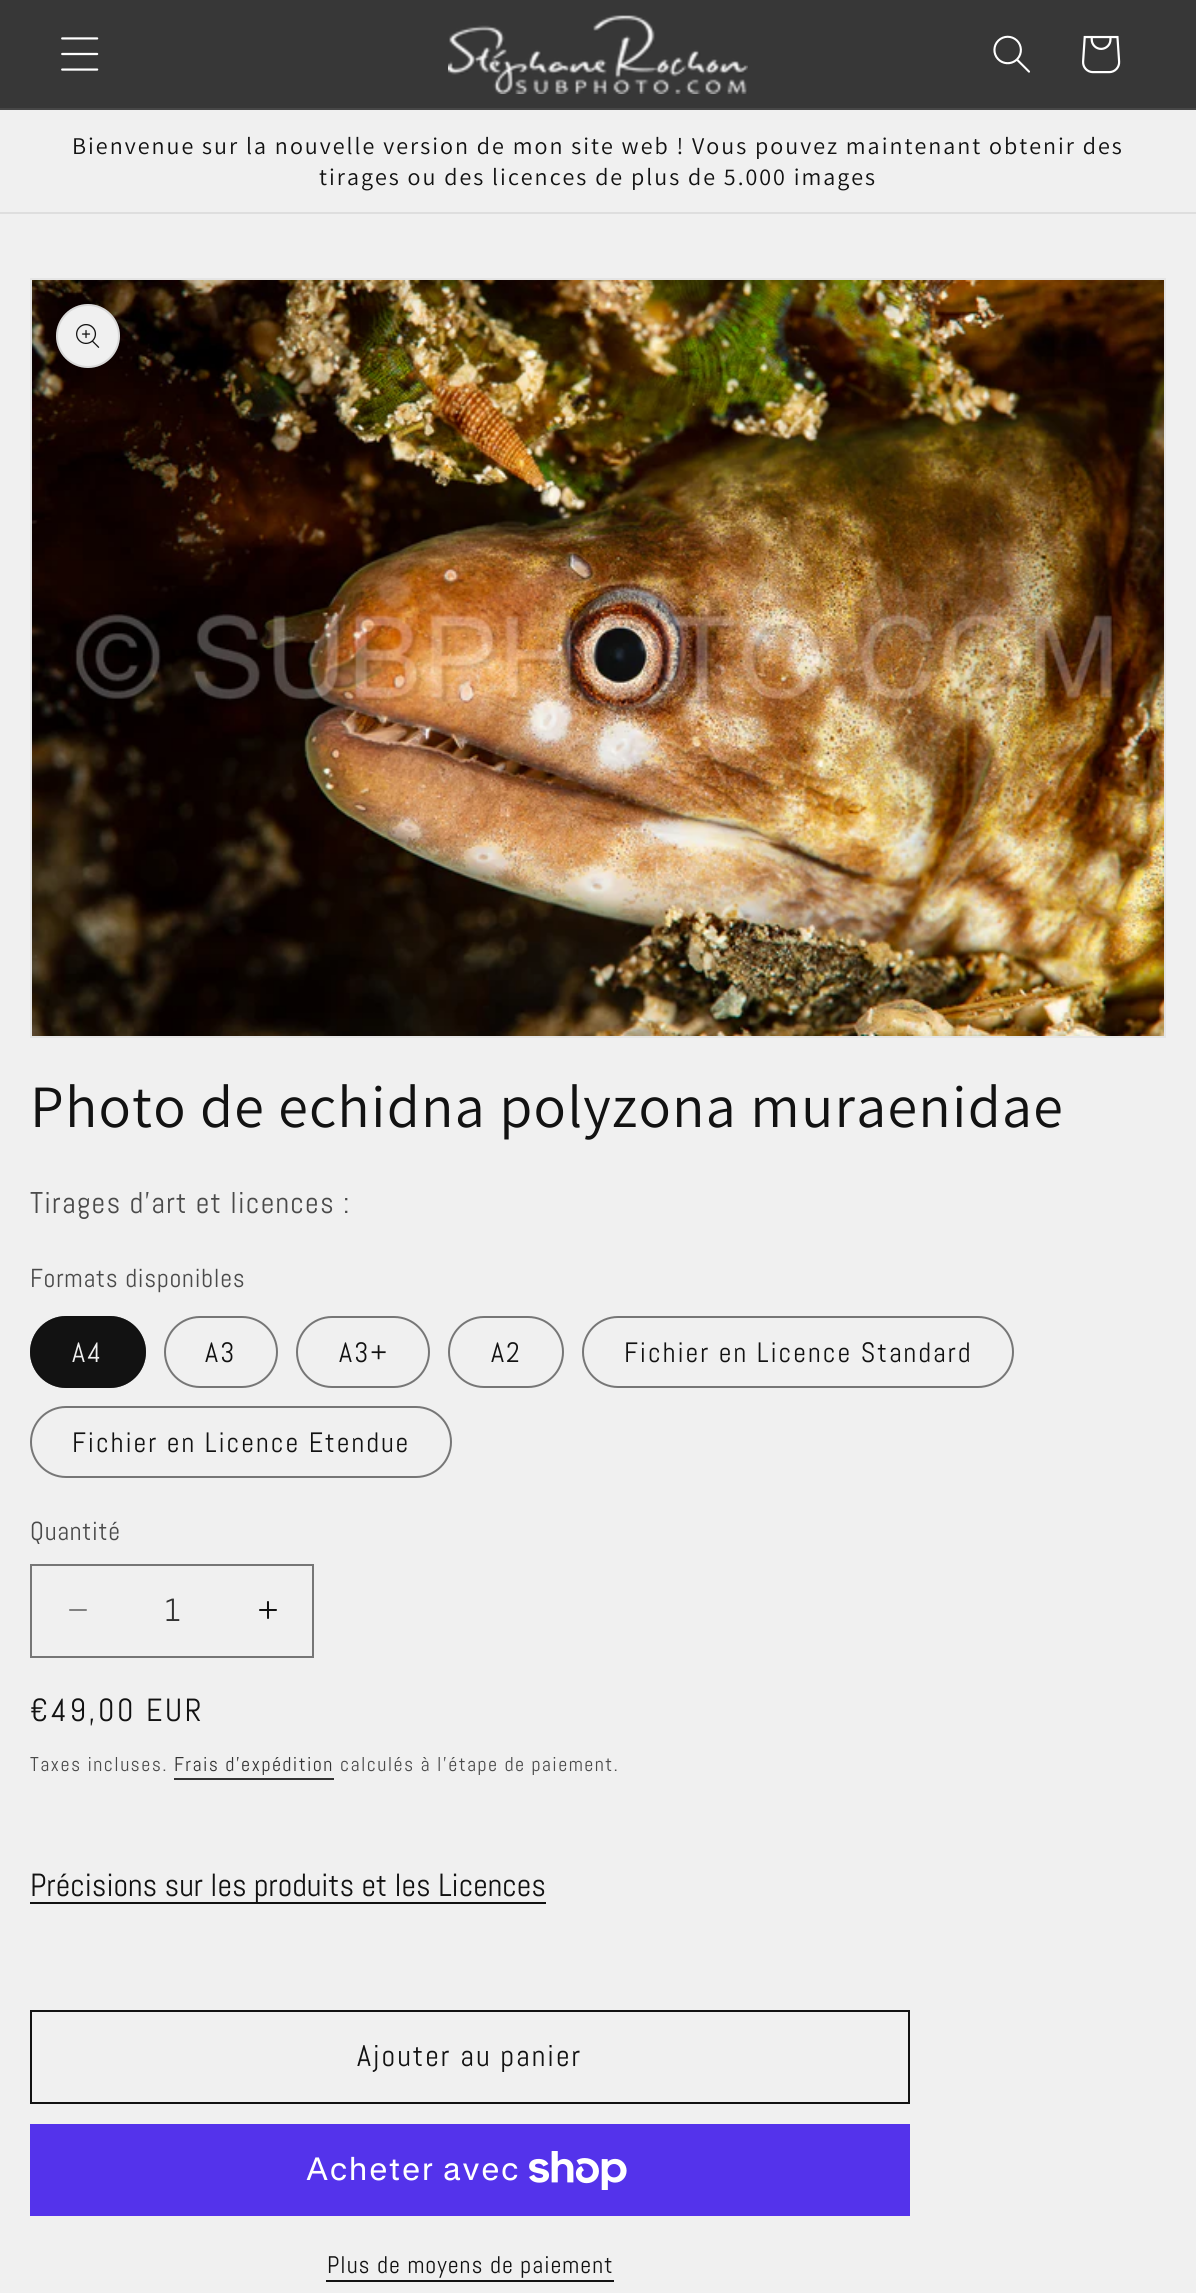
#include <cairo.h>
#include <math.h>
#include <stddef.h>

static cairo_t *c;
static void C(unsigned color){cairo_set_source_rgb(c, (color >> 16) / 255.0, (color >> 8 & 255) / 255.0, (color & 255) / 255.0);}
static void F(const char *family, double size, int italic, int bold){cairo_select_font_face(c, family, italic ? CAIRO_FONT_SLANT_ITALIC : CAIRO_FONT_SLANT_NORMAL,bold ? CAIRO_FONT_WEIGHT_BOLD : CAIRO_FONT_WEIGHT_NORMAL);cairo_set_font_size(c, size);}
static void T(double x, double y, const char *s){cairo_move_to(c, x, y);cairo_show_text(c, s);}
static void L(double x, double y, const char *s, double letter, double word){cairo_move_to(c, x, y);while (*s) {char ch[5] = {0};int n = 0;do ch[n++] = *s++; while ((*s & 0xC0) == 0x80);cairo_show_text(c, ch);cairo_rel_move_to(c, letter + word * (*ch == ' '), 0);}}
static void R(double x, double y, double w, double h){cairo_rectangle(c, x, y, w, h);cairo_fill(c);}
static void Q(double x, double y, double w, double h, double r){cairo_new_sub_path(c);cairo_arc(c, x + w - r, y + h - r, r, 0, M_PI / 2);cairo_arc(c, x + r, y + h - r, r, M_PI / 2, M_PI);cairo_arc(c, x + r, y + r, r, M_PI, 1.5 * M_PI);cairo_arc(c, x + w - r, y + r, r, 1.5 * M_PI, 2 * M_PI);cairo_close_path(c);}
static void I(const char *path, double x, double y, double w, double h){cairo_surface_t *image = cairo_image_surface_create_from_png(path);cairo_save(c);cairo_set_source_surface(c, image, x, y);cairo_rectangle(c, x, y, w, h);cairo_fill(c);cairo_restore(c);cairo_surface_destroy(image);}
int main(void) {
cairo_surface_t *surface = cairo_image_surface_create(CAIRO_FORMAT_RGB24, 1196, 2293);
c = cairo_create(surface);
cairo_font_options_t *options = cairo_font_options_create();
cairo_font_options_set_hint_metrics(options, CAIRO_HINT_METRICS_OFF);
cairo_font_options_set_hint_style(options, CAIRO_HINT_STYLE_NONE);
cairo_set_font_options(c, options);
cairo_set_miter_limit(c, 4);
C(0xf0f0f0);
cairo_paint(c);
C(0x373737);
R(0,0,1196,108);
C(0x474747);
R(0,108,1196,2);
I("1.png",61,37,38,34);
I("2.png",448,15,300,79);
I("3.png",993,35,37,38);
I("4.png",1082,35,39,39);
C(0xdedede);
R(0,212,1196,2);
F("Assistant",24,0,0);
C(0x121212);
L(72,154,"Bienvenue sur la nouvelle version de mon site web ! Vous pouvez maintenant obtenir des",2,0);
L(319,185,"tirages ou des licences de plus de 5.000 images",2,0);
cairo_rectangle(c,31,279,1134,758);
C(0xe5e5e5);
cairo_stroke(c);
I("5.png",32,280,1132,756);
C(0xf0f0f0);
cairo_arc(c,88,336,32,0,2 * M_PI);
cairo_fill(c);
cairo_arc(c,88,336,31,0,2 * M_PI);
cairo_set_source_rgba(c,0.071,0.071,0.071,0.1);
cairo_stroke(c);
I("6.png",76,324,24,24);
F("Assistant",60,0,0);
C(0x121212);
L(30,1127,"Photo de echidna polyzona muraenidae",1.2,0);
F("Abel",30,0,0);
C(0x4a4a4a);
L(30,1213,"Tirages d'art et licences :",1.2,0);
F("Abel",26,0,0);
L(30,1287,"Formats disponibles",.75,0);
C(0x121212);
Q(30,1316,116,72,36);
cairo_fill(c);
Q(31,1317,114,70,35);
cairo_set_source_rgba(c,0.071,0.071,0.071,0.55);
cairo_stroke(c);
F("Abel",28,0,0);
C(0xf0f0f0);
L(72,1362,"A4",2,0);
Q(165,1317,112,70,35);
C(0x767676);
cairo_stroke(c);
C(0x121212);
L(205,1362,"A3",2,0);
Q(297,1317,132,70,35);
C(0x767676);
cairo_stroke(c);
C(0x121212);
L(339,1362,"A3+",2,0);
Q(449,1317,114,70,35);
C(0x767676);
cairo_stroke(c);
C(0x121212);
L(491,1362,"A2",2,0);
Q(583,1317,430,70,35);
C(0x767676);
cairo_stroke(c);
C(0x121212);
L(624,1362,"Fichier en Licence Standard",2,0);
Q(31,1407,420,70,35);
C(0x767676);
cairo_stroke(c);
C(0x121212);
L(72,1452,"Fichier en Licence Etendue",2,0);
F("Abel",26,0,0);
C(0x4a4a4a);
L(30,1540,"Quantité",.75,0);
I("7.png",69,1609,18,2);
I("8.png",259,1601,18,18);
cairo_rectangle(c,31,1565,282,92);
C(0x767676);
cairo_stroke(c);
F("Abel",32,0,0);
C(0x333333);
T(164,1621,"1");
C(0x121212);
L(30,1721,"€49,00 EUR",2.6,0);
F("Abel",20,0,0);
C(0x4a4a4a);
L(30,1771,"Taxes incluses.",1.4,0);
C(0x333333);
L(174,1771,"Frais d'expédition",1.4,0);
R(174,1778,160,2);
C(0x4a4a4a);
L(340,1771,"calculés à l'étape de paiement.",1.4,0);
C(0x121212);
R(30,1902,516,2);
F("Abel",32,0,0);
T(30,1896,"Précisions sur les produits et les Licences");
cairo_rectangle(c,31,2011,878,92);
cairo_stroke(c);
F("Abel",30,0,0);
L(357,2066,"Ajouter au panier",2,0);
C(0x5433eb);
R(30,2124,880,92);
F("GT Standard",32,0,0);
C(0xffffff);
L(306,2180,"Acheter avec",1.2,0);
I("9.png",529,2151,98,39);
F("Abel",24,0,0);
C(0x121212);
L(327,2273,"Plus de moyens de paiement",1,0);
R(326,2280,288,2);
cairo_surface_write_to_png(surface, "o.png");
cairo_font_options_destroy(options);
cairo_destroy(c);
cairo_surface_destroy(surface);
return 0;
}
